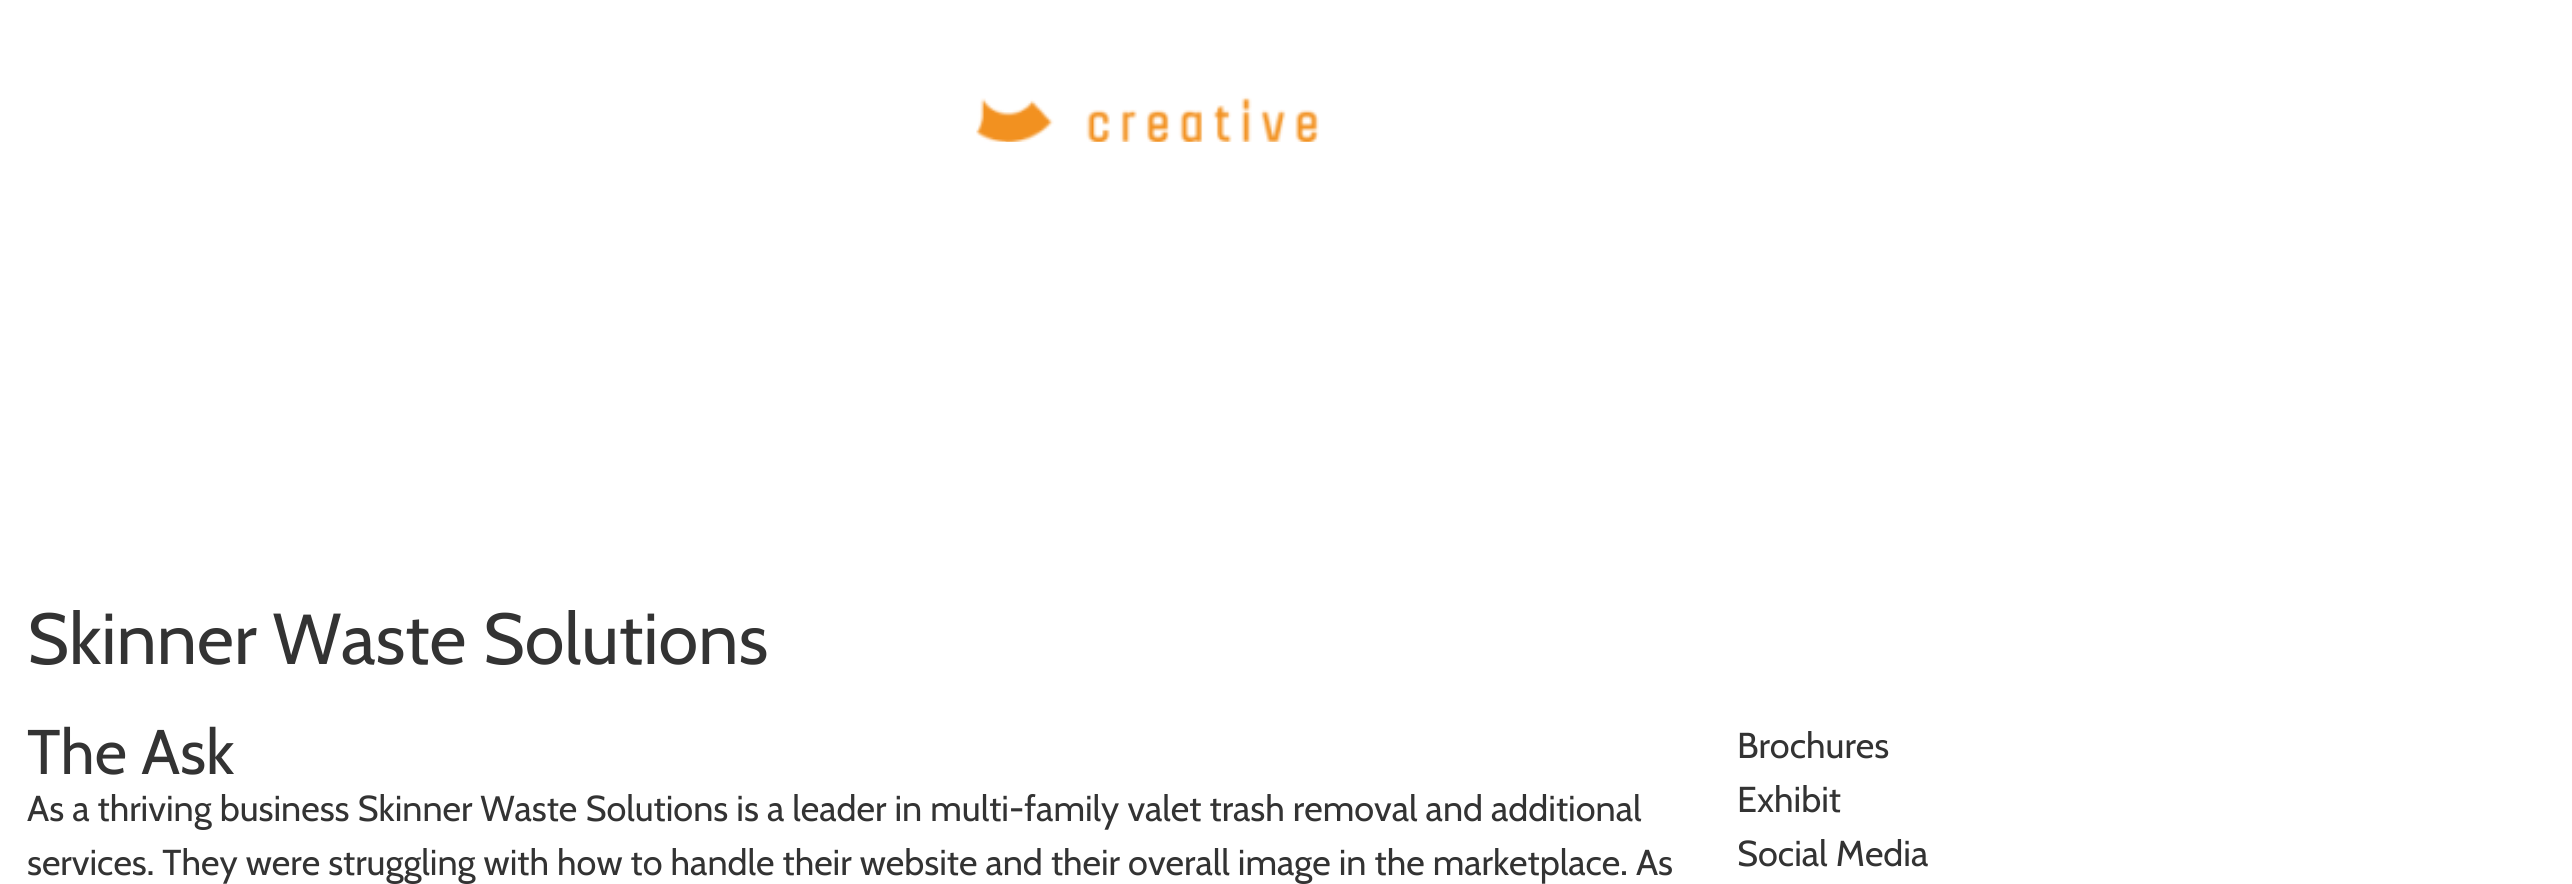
#include <cairo.h>
#include <math.h>
#include <stddef.h>

static cairo_t *c;
static void C(unsigned color){cairo_set_source_rgb(c, (color >> 16) / 255.0, (color >> 8 & 255) / 255.0, (color & 255) / 255.0);}
static void F(const char *family, double size, int italic, int bold){cairo_select_font_face(c, family, italic ? CAIRO_FONT_SLANT_ITALIC : CAIRO_FONT_SLANT_NORMAL,bold ? CAIRO_FONT_WEIGHT_BOLD : CAIRO_FONT_WEIGHT_NORMAL);cairo_set_font_size(c, size);}
static void T(double x, double y, const char *s){cairo_move_to(c, x, y);cairo_show_text(c, s);}
static void I(const char *path, double x, double y, double w, double h){cairo_surface_t *image = cairo_image_surface_create_from_png(path);cairo_save(c);cairo_set_source_surface(c, image, x, y);cairo_rectangle(c, x, y, w, h);cairo_fill(c);cairo_restore(c);cairo_surface_destroy(image);}
int main(void) {
cairo_surface_t *surface = cairo_image_surface_create(CAIRO_FORMAT_RGB24, 2572, 884);
c = cairo_create(surface);
cairo_font_options_t *options = cairo_font_options_create();
cairo_font_options_set_hint_metrics(options, CAIRO_HINT_METRICS_OFF);
cairo_font_options_set_hint_style(options, CAIRO_HINT_STYLE_NONE);
cairo_set_font_options(c, options);
cairo_set_miter_limit(c, 4);
C(0xffffff);
cairo_paint(c);
I("1.png",976,96,343,46);
I("2.png",991,141,16,1);
F("Cabin",72,0,0);
C(0x333333);
T(27,664,"Skinner Waste Solutions");
F("Cabin",63,0,0);
T(27,774,"The Ask");
F("Cabin",36,0,0);
T(27,821,"As a thriving business Skinner Waste Solutions is a leader in multi-family valet trash removal and additional");
T(27,875,"services. They were struggling with how to handle their website and their overall image in the marketplace. As");
T(1737,758,"Brochures");
T(1737,812,"Exhibit");
T(1737,866,"Social Media");
cairo_surface_write_to_png(surface, "o.png");
cairo_font_options_destroy(options);
cairo_destroy(c);
cairo_surface_destroy(surface);
return 0;
}
